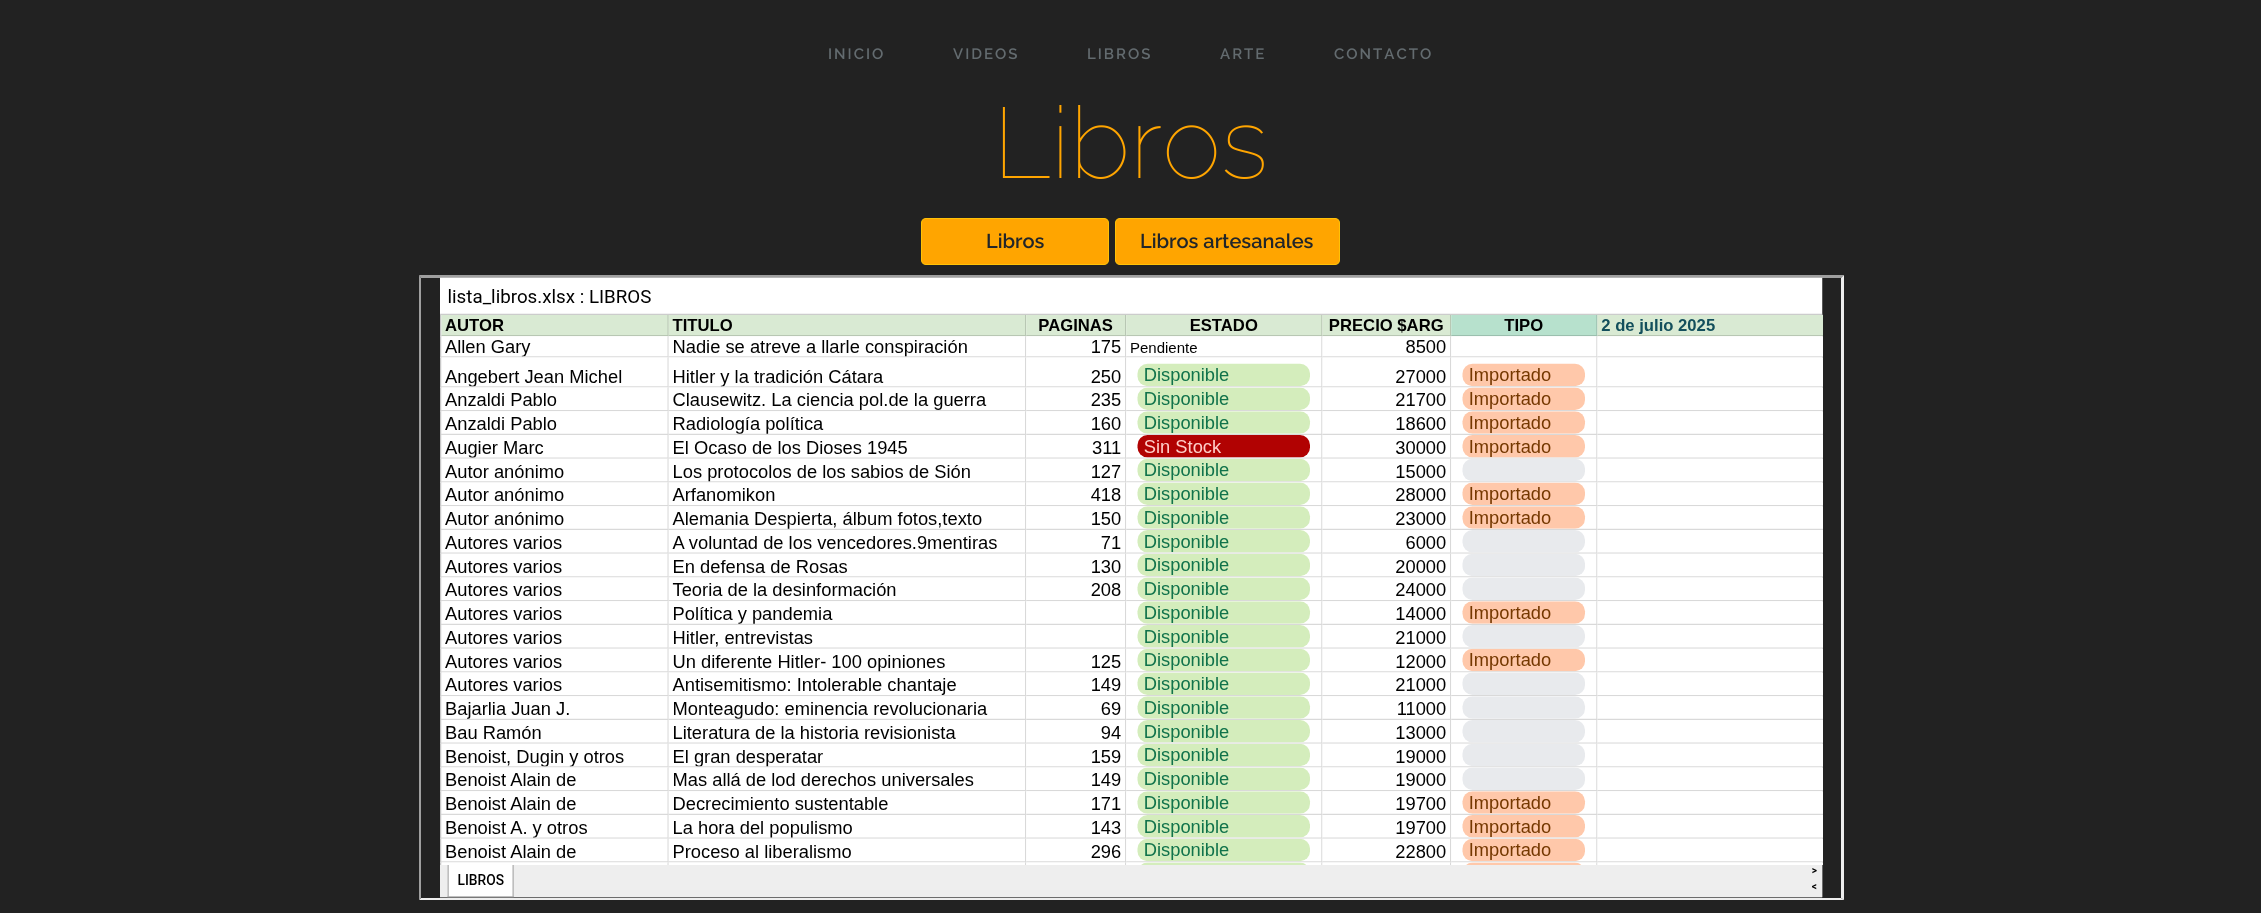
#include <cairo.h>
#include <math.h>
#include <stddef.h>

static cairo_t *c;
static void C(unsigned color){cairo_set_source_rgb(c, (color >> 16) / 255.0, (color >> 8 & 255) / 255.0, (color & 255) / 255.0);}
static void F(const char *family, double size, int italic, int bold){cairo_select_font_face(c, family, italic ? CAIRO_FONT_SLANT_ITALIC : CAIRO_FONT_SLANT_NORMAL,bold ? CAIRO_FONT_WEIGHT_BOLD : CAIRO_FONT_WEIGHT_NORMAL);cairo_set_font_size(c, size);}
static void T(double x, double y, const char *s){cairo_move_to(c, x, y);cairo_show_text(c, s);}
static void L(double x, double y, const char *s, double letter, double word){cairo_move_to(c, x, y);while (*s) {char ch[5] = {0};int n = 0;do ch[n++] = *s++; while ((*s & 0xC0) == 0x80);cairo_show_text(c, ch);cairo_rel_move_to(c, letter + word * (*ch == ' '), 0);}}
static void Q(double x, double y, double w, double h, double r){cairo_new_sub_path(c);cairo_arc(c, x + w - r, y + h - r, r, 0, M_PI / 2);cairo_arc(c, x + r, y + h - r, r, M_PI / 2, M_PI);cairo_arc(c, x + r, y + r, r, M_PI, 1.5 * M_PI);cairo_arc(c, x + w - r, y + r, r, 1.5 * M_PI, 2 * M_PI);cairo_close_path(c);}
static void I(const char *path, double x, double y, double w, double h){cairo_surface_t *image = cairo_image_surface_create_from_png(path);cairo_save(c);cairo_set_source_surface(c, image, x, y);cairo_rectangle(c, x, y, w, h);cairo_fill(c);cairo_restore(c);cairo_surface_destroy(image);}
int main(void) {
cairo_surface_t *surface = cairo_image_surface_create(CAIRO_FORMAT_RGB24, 2261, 913);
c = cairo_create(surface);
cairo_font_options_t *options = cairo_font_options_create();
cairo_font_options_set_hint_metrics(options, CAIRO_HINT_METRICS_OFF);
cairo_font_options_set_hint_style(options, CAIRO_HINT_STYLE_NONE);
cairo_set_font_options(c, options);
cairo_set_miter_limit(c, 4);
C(0x222222);
cairo_paint(c);
F("Raleway SemiBold",15,0,0);
C(0x636b6f);
L(828,59,"INICIO",2,0);
L(953,59,"VIDEOS",2,0);
L(1087,59,"LIBROS",2,0);
L(1220,59,"ARTE",2,0);
L(1334,59,"CONTACTO",2,0);
F("Raleway Thin",100,0,0);
C(0xffa500);
T(993,178,"Libros");
Q(921.5,218.5,187,46,4.5);
cairo_fill_preserve(c);
C(0xffc107);
cairo_set_line_width(c,1);
cairo_stroke(c);
F("Raleway SemiBold",20,0,0);
C(0x212529);
T(986,248,"Libros");
C(0xffa500);
Q(1115.5,218.5,224,46,4.5);
cairo_fill_preserve(c);
C(0xffc107);
cairo_stroke(c);
C(0x212529);
T(1140,248,"Libros artesanales");
C(0x9f9f9f);
cairo_new_path(c);
cairo_move_to(c,419,275);
cairo_line_to(c,1844,275);
cairo_line_to(c,1841,278);
cairo_line_to(c,421,278);
cairo_close_path(c);
cairo_fill(c);
C(0xeeeeee);
cairo_new_path(c);
cairo_move_to(c,1844,275);
cairo_line_to(c,1844,900);
cairo_line_to(c,1841,898);
cairo_line_to(c,1841,278);
cairo_close_path(c);
cairo_fill(c);
cairo_new_path(c);
cairo_move_to(c,1844,900);
cairo_line_to(c,419,900);
cairo_line_to(c,421,898);
cairo_line_to(c,1841,898);
cairo_close_path(c);
cairo_fill(c);
C(0x9f9f9f);
cairo_new_path(c);
cairo_move_to(c,419,900);
cairo_line_to(c,419,275);
cairo_line_to(c,421,278);
cairo_line_to(c,421,898);
cairo_close_path(c);
cairo_fill(c);
I("1.png",440,277,1383,621);
cairo_surface_write_to_png(surface, "o.png");
cairo_font_options_destroy(options);
cairo_destroy(c);
cairo_surface_destroy(surface);
return 0;
}
